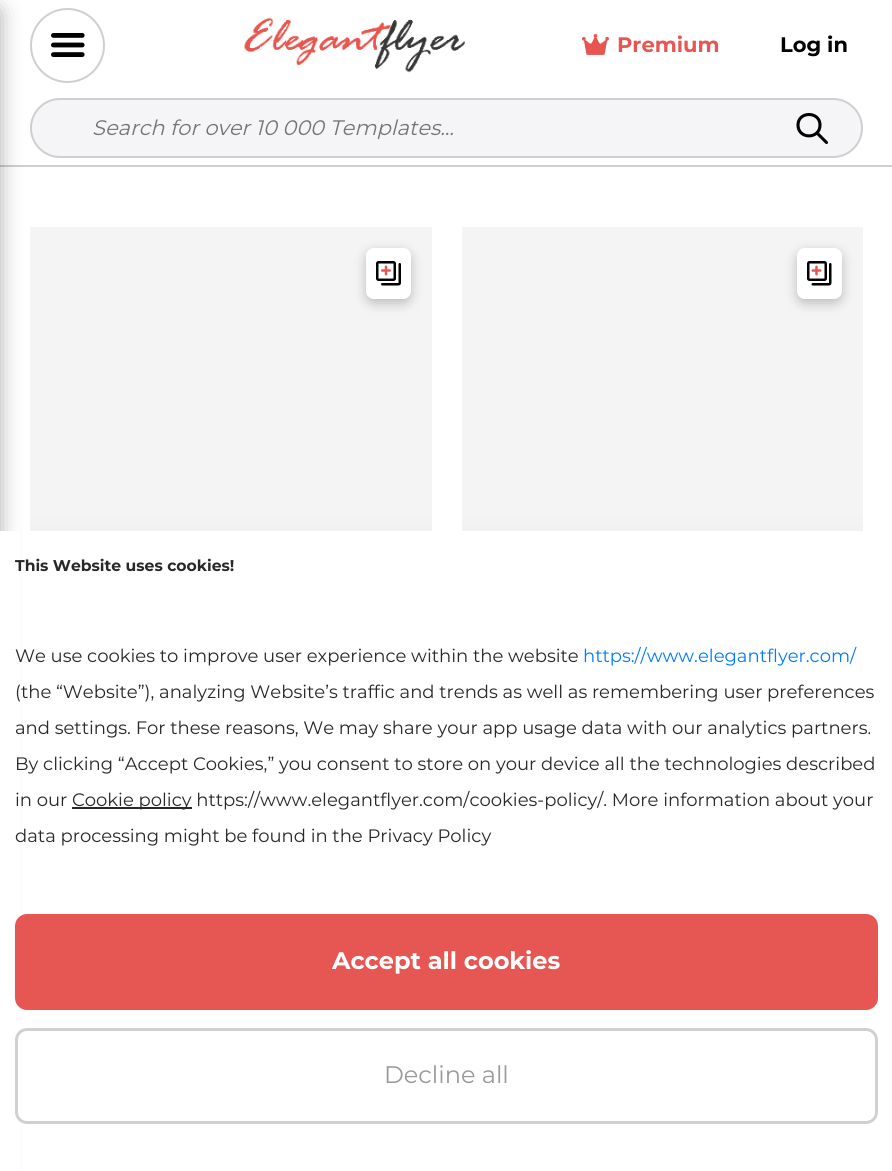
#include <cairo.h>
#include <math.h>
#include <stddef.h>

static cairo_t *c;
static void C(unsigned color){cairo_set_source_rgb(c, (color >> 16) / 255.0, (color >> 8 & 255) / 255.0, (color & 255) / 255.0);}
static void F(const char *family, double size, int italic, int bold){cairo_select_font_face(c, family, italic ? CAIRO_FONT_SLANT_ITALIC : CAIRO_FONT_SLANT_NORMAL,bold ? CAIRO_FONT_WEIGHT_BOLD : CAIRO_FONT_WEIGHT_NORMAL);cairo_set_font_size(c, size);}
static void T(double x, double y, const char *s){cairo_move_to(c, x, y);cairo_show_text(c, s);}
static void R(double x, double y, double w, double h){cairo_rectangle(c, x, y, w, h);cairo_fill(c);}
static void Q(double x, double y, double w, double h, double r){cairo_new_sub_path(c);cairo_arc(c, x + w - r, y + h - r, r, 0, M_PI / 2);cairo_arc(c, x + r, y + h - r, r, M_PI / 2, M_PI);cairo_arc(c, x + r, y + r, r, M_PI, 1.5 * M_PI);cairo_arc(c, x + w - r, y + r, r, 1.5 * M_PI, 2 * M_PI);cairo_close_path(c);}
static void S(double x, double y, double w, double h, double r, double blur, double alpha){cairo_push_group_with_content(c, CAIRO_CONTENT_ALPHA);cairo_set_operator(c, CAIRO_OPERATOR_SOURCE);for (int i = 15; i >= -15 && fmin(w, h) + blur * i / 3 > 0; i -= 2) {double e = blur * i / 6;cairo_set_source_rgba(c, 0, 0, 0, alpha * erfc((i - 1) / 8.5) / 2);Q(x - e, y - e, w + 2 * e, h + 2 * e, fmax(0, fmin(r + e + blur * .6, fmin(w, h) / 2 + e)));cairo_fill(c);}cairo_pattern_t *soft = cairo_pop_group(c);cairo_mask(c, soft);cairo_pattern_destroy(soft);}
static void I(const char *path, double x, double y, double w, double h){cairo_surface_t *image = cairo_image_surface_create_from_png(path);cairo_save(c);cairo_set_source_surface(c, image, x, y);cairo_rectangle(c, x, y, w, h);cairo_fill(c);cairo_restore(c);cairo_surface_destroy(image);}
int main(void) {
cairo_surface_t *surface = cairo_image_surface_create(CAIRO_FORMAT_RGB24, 892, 1171);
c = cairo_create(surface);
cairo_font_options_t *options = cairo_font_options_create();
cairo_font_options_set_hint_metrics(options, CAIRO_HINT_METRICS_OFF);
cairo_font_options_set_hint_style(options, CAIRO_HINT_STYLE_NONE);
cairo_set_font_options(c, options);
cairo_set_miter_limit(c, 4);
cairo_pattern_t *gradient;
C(0xffffff);
cairo_paint(c);
C(0xcdcfd0);
R(0,165,892,2);
cairo_arc(c,67.5,45.5,36.5,0,2 * M_PI);
cairo_stroke(c);
C(0xf5f5f7);
Q(31,99,831,58,29);
cairo_fill_preserve(c);
C(0xcdcfd0);
cairo_stroke(c);
gradient = cairo_pattern_create_linear(231,810,231,226);
cairo_pattern_add_color_stop_rgba(gradient,.03,0.796,0.796,0.796,1);
cairo_pattern_add_color_stop_rgba(gradient,.51,0.957,0.957,0.957,1);
cairo_set_source(c,gradient);
cairo_pattern_destroy(gradient);
R(30,227,402,304);
C(0x000000);
S(-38,8,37,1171,5,11,.35);
I("1.png",51,33,34,24);
I("2.png",244,17,221,56);
I("3.png",582,34,27,21);
F("Montserrat",21,0,1);
C(0xe65753);
T(617,52,"Premium");
C(0x000000);
T(780,52,"Log in");
F("Montserrat",21,1,0);
C(0x757575);
T(92,135,"Search for over 10 000 Templates...");
cairo_new_path(c);
cairo_move_to(c,817,133);
cairo_line_to(c,826.5,142.5);
C(0x000000);
cairo_set_line_width(c,3.1);
cairo_set_line_cap(c,CAIRO_LINE_CAP_ROUND);
cairo_set_line_join(c,CAIRO_LINE_JOIN_ROUND);
cairo_stroke(c);
cairo_new_path(c);
cairo_move_to(c,820,125);
cairo_curve_to(c,820,139.5,798,139.5,798,125);
cairo_curve_to(c,798,111,820,111,820,125);
cairo_close_path(c);
cairo_set_line_cap(c,CAIRO_LINE_CAP_BUTT);
cairo_set_line_join(c,CAIRO_LINE_JOIN_MITER);
cairo_stroke(c);
C(0x000000);
S(366,252,45,51,8,6,.24);
C(0xffffff);
Q(366,248,45,51,8);
cairo_fill(c);
I("4.png",376,261,25,25);
gradient = cairo_pattern_create_linear(662,810,662,226);
cairo_pattern_add_color_stop_rgba(gradient,.03,0.796,0.796,0.796,1);
cairo_pattern_add_color_stop_rgba(gradient,.51,0.957,0.957,0.957,1);
cairo_set_source(c,gradient);
cairo_pattern_destroy(gradient);
R(462,227,401,304);
C(0x000000);
S(797,252,45,51,8,6,.24);
C(0xffffff);
Q(797,248,45,51,8);
cairo_fill(c);
I("5.png",807,261,25,25);
R(0,531,20,640);
F("Montserrat",15.6,0,1);
C(0x282828);
T(15,571,"This Website uses cookies!");
F("Montserrat",18,0,0);
T(15,662,"We use cookies to improve user experience within the website");
C(0x007bff);
T(583,662,"https://www.elegantflyer.com/");
C(0x282828);
T(15,698,"(the “Website”), analyzing Website’s traffic and trends as well as remembering user preferences");
T(15,734,"and settings. For these reasons, We may share your app usage data with our analytics partners.");
T(15,770,"By clicking “Accept Cookies,” you consent to store on your device all the technologies described");
T(15,806,"in our");
R(72,807,120,2);
T(72,806,"Cookie policy https://www.elegantflyer.com/cookies-policy/. More information about your");
T(15,842,"data processing might be found in the Privacy Policy");
C(0xe65753);
Q(16.5,915.5,860,93,10.5);
cairo_fill_preserve(c);
cairo_set_line_width(c,3);
cairo_stroke(c);
F("Montserrat",24,0,1);
C(0xffffff);
T(332,969,"Accept all cookies");
Q(16.5,1029.5,860,93,10.5);
C(0xd0d0d0);
cairo_stroke(c);
F("Montserrat",24,0,0);
C(0x9c9a99);
T(384,1083,"Decline all");
cairo_surface_write_to_png(surface, "o.png");
cairo_font_options_destroy(options);
cairo_destroy(c);
cairo_surface_destroy(surface);
return 0;
}
